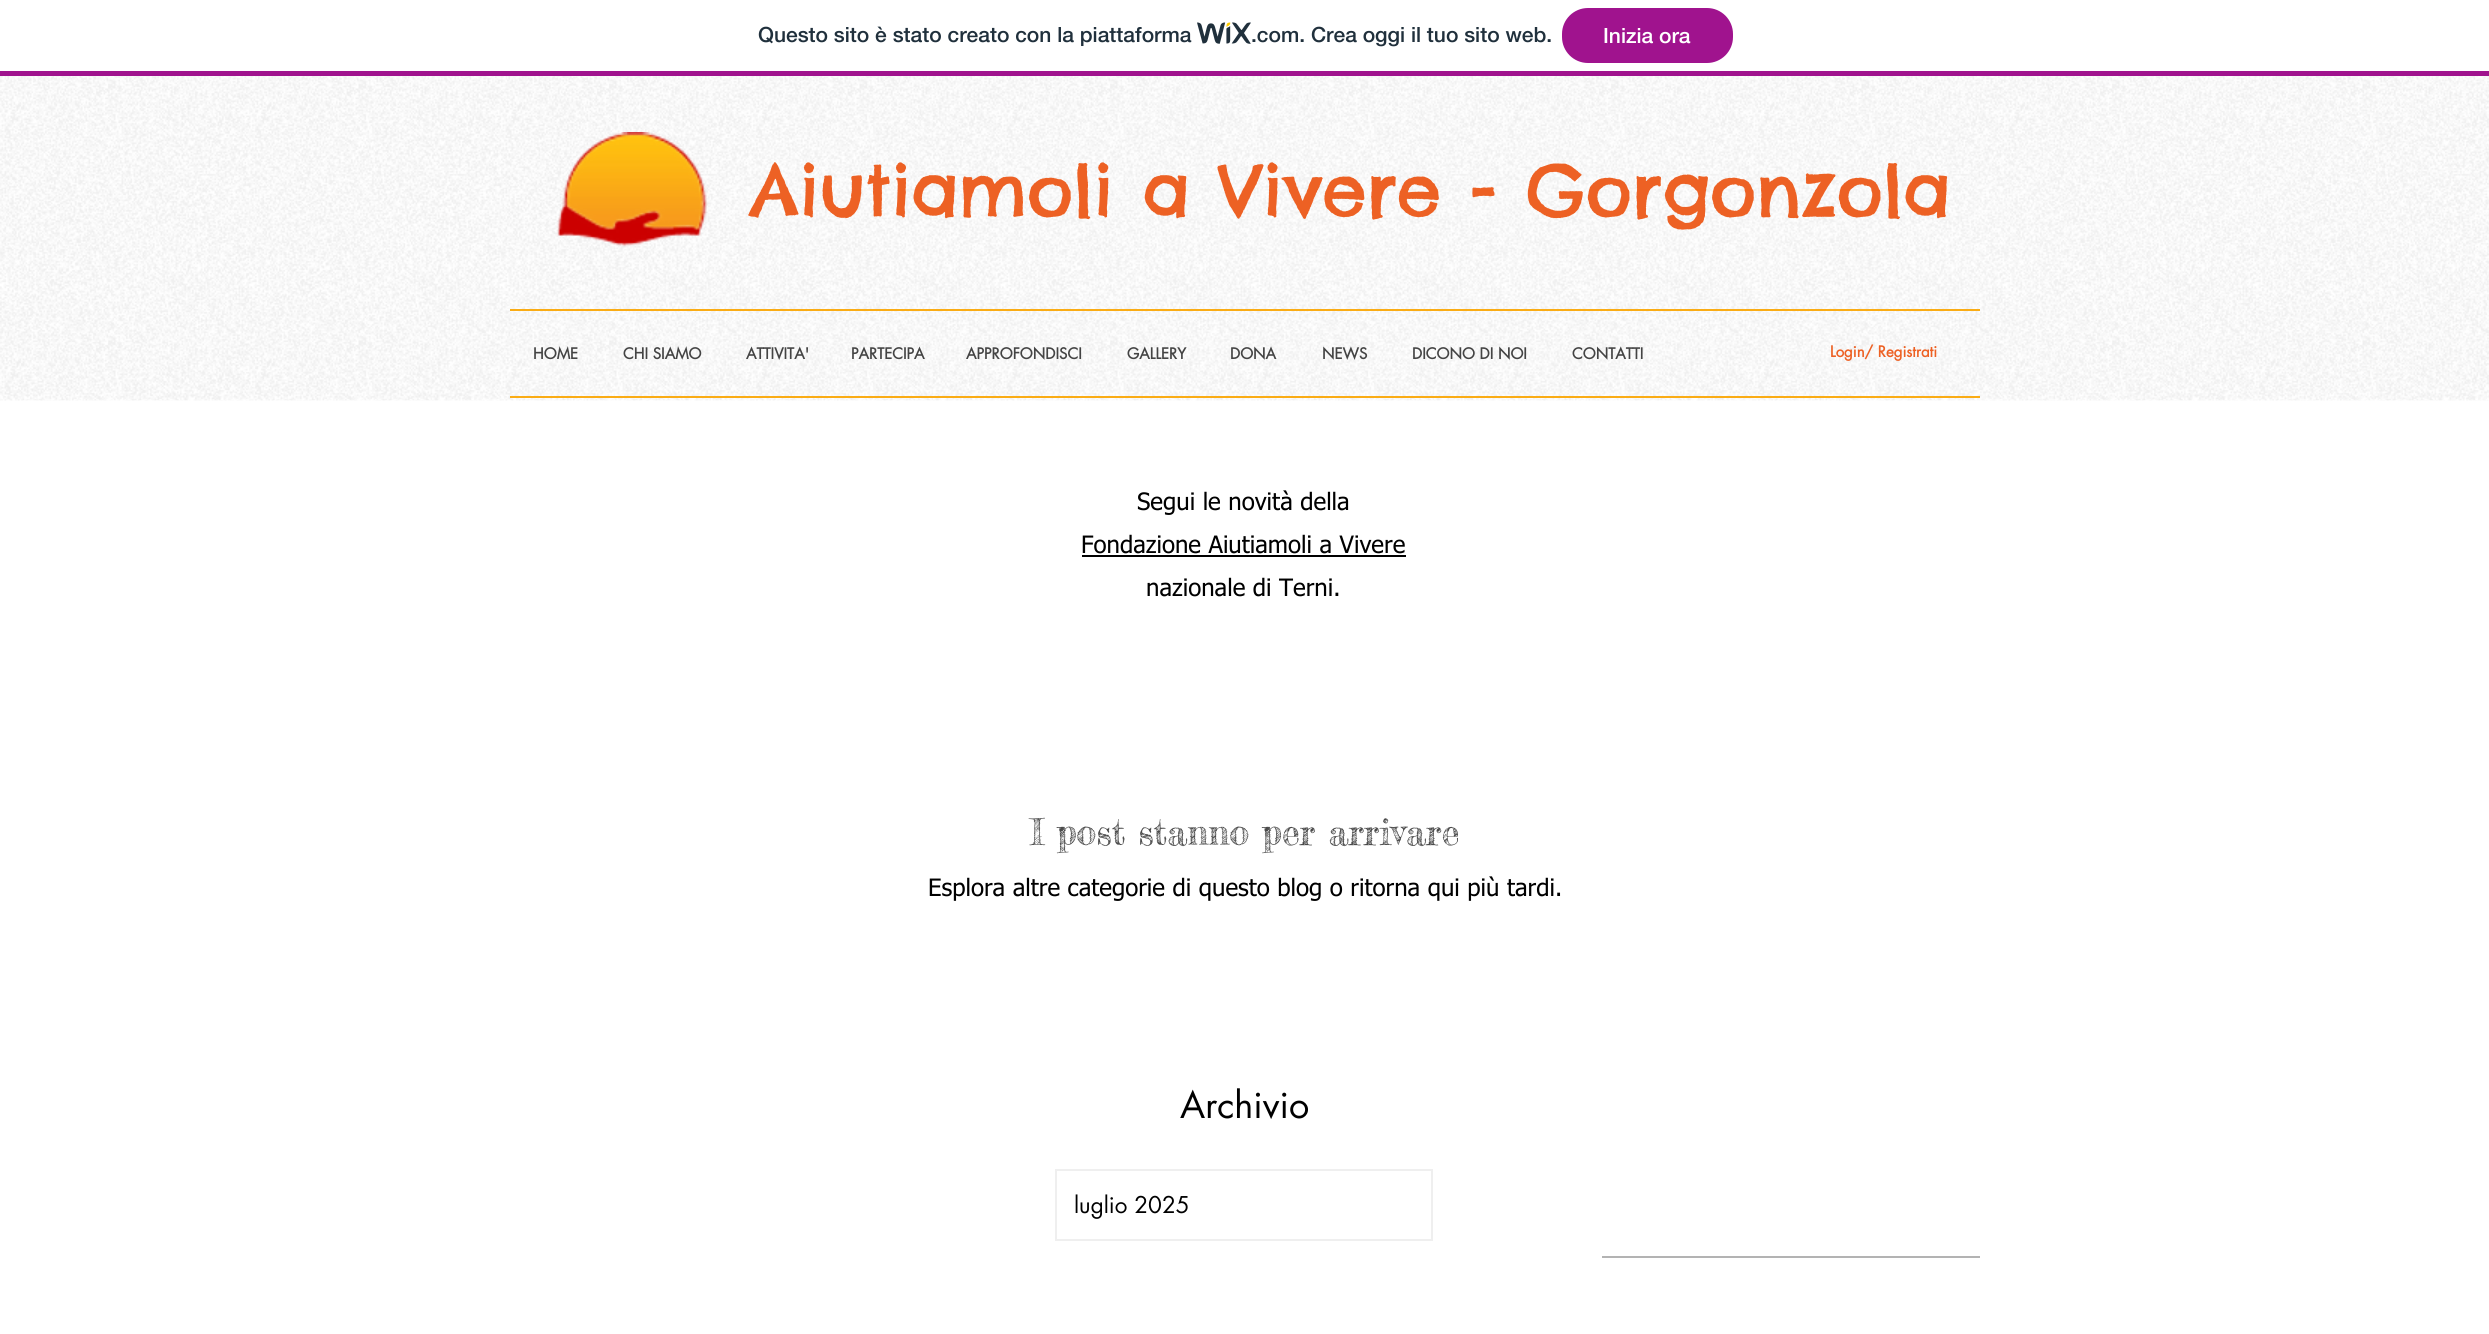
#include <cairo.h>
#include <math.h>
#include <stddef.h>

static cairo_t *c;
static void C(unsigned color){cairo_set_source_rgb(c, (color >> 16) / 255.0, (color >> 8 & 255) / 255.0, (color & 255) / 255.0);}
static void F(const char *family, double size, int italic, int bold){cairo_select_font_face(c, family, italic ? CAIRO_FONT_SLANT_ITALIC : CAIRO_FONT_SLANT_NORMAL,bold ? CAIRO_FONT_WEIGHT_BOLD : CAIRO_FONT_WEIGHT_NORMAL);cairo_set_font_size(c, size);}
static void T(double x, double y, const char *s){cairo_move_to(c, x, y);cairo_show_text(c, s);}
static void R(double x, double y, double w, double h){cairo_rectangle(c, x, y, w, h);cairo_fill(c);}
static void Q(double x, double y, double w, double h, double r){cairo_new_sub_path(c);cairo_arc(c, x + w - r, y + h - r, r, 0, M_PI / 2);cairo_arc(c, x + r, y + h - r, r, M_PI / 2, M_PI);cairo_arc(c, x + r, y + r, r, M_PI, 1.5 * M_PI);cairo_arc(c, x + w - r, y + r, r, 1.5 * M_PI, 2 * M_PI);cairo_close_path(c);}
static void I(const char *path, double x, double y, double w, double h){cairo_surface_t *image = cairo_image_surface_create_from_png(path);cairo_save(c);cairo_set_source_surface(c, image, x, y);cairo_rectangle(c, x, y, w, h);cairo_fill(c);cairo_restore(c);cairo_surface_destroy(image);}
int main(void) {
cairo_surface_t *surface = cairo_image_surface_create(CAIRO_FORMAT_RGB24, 2489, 1334);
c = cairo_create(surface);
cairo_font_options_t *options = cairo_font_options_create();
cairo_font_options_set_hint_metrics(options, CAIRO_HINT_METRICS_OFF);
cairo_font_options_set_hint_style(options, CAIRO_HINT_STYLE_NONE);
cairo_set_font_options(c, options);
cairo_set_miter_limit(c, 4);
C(0xffffff);
cairo_paint(c);
C(0xa0138e);
R(0,71,2489,5);
F("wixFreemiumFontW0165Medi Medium",21,0,0);
C(0x20303c);
T(758,42,"Questo sito è stato creato con la piattaforma");
I("1.png",1197,22,54,22);
T(1251,42,".com. Crea oggi il tuo sito web.");
C(0xa0138e);
Q(1563,9,169,53,25);
cairo_fill_preserve(c);
cairo_stroke(c);
C(0xffffff);
T(1603,43,"Inizia ora");
I("2.png",0,76,2489,325);
I("3.png",557,132,150,115);
F("Chelsea Market",70.5,0,0);
C(0xed6124);
T(750,216,"Aiutiamoli a Vivere - Gorgonzola");
C(0xfaac15);
R(510,309,1470,2);
R(510,396,1470,2);
F("futura",15,0,1);
C(0x444444);
T(533,359,"HOME");
T(623,359,"CHI SIAMO");
T(746,359,"ATTIVITA'");
T(851,359,"PARTECIPA");
T(966,359,"APPROFONDISCI");
T(1127,359,"GALLERY");
T(1230,359,"DONA");
T(1322,359,"NEWS");
T(1412,359,"DICONO DI NOI");
T(1572,359,"CONTATTI");
C(0xed6124);
T(1830,357,"Login/ Registrati");
F("tahoma",24,0,0);
C(0x000000);
T(1137,510,"Segui le novità della");
T(1081,553,"Fondazione Aiutiamoli a Vivere");
R(1082,555,324,2);
T(1146,596,"nazionale di Terni.");
F("Fredericka the Great",36,0,0);
C(0x4a4a4a);
T(1030,845,"I post stanno per arrivare");
F("tahoma",24,0,0);
C(0x000000);
T(928,896,"Esplora altre categorie di questo blog o ritorna qui più tardi.");
F("futura",36,0,0);
T(1180,1118,"Archivio");
cairo_rectangle(c,1056,1170,376,70);
C(0xefefef);
cairo_stroke(c);
F("futura",22.5,0,0);
C(0x000000);
T(1074,1213,"luglio 2025");
C(0xb3b3b3);
R(1602,1256,378,2);
cairo_surface_write_to_png(surface, "o.png");
cairo_font_options_destroy(options);
cairo_destroy(c);
cairo_surface_destroy(surface);
return 0;
}
